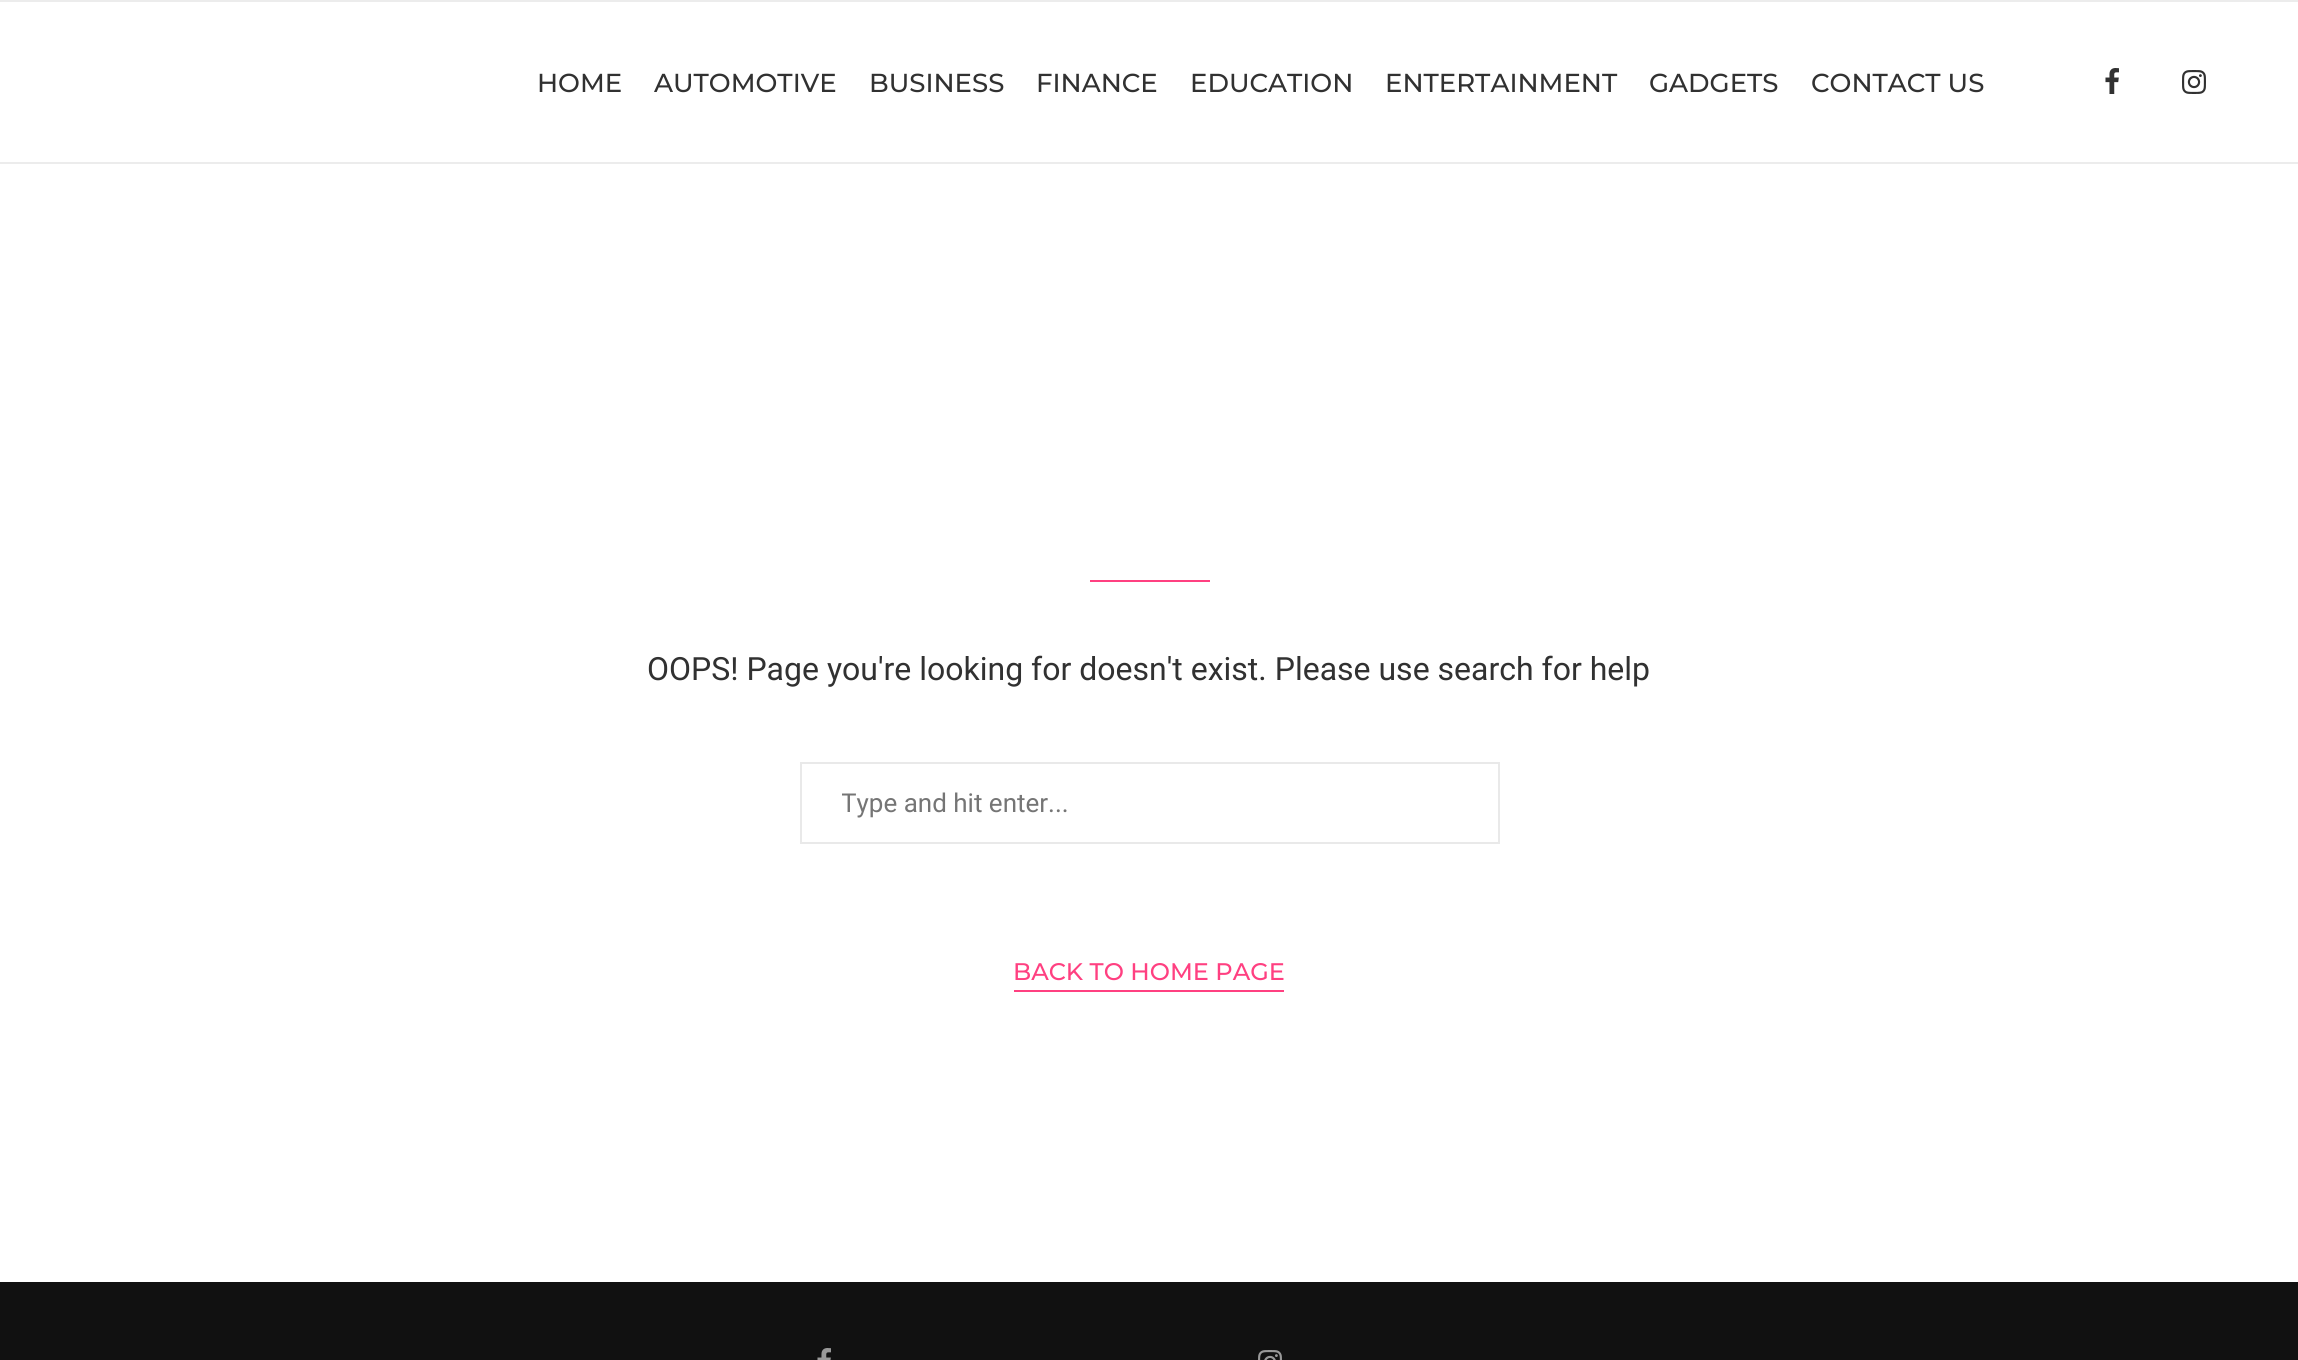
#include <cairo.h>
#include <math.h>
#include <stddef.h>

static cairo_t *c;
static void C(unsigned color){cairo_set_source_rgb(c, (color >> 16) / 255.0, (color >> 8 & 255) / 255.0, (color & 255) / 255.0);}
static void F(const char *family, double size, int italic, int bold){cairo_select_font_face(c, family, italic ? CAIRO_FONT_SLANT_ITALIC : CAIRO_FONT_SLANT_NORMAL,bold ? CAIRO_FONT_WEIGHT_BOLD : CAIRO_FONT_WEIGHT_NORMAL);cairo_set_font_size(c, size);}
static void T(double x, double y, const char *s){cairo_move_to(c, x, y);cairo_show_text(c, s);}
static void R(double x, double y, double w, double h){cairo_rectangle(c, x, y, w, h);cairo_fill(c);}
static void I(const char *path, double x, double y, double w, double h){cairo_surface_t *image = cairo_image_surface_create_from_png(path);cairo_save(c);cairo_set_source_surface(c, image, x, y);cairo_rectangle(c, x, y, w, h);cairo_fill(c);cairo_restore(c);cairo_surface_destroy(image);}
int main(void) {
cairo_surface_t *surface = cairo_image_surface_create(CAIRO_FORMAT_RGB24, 2298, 1360);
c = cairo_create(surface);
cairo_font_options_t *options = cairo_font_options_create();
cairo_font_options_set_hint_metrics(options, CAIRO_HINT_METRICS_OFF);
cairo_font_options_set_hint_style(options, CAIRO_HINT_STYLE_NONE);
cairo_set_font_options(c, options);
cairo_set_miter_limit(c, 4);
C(0xffffff);
cairo_paint(c);
C(0xececec);
R(0,0,2298,2);
R(0,162,2298,2);
F("Montserrat Medium",26,0,0);
C(0x313131);
T(537,92,"HOME");
T(654,92,"AUTOMOTIVE");
T(869,92,"BUSINESS");
T(1036,92,"FINANCE");
T(1190,92,"EDUCATION");
T(1385,92,"ENTERTAINMENT");
T(1649,92,"GADGETS");
T(1811,92,"CONTACT US");
I("1.png",2105,68,14,26);
I("2.png",2182,70,24,24);
C(0xff4081);
R(1090,580,120,2);
F("Roboto",32,0,0);
C(0x313131);
T(647,680,"OOPS! Page you're looking for doesn't exist. Please use search for help");
cairo_rectangle(c,801,763,698,80);
C(0xe9e9e9);
cairo_stroke(c);
cairo_save(c);
cairo_rectangle(c,842,788,576,30);
cairo_clip(c);
F("Roboto",26,0,0);
C(0x757575);
T(841,812,"Type and hit enter...");
cairo_restore(c);
F("Montserrat Medium",24,0,0);
C(0xff4081);
T(1013,980,"BACK TO HOME PAGE");
R(1014,990,270,2);
C(0x111111);
R(0,1282,2298,78);
I("3.png",817,1348,14,12);
I("4.png",1258,1350,24,10);
cairo_surface_write_to_png(surface, "o.png");
cairo_font_options_destroy(options);
cairo_destroy(c);
cairo_surface_destroy(surface);
return 0;
}
